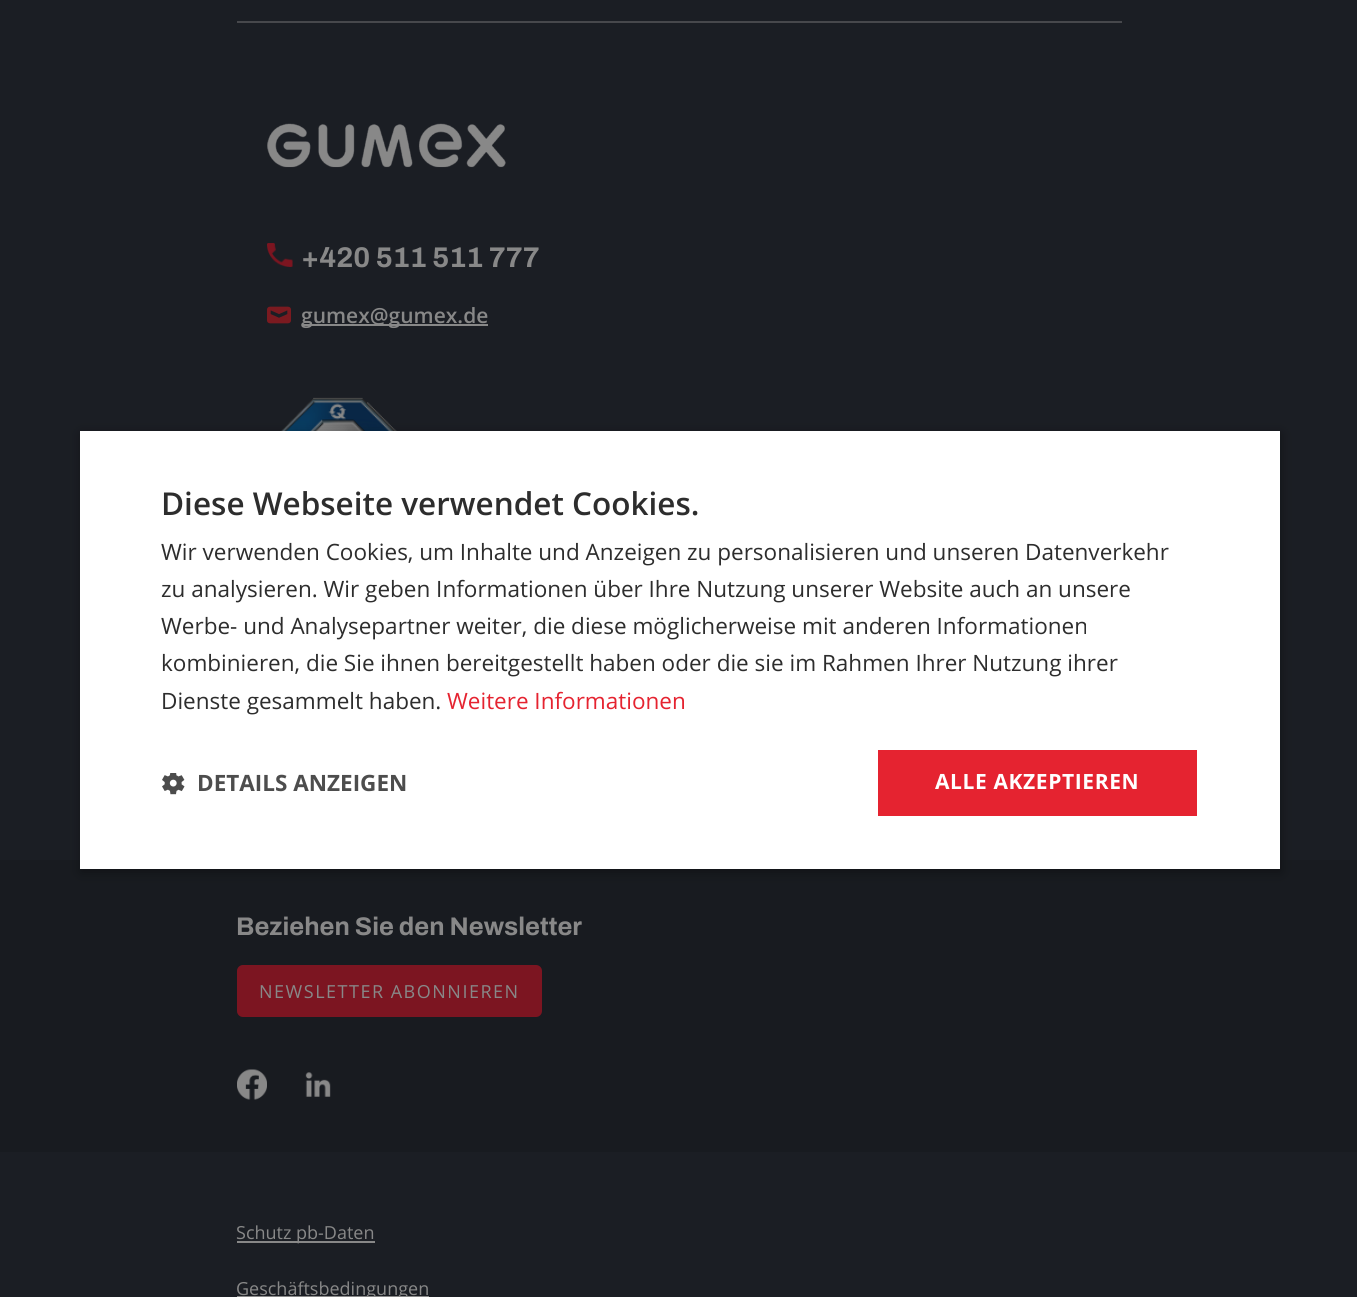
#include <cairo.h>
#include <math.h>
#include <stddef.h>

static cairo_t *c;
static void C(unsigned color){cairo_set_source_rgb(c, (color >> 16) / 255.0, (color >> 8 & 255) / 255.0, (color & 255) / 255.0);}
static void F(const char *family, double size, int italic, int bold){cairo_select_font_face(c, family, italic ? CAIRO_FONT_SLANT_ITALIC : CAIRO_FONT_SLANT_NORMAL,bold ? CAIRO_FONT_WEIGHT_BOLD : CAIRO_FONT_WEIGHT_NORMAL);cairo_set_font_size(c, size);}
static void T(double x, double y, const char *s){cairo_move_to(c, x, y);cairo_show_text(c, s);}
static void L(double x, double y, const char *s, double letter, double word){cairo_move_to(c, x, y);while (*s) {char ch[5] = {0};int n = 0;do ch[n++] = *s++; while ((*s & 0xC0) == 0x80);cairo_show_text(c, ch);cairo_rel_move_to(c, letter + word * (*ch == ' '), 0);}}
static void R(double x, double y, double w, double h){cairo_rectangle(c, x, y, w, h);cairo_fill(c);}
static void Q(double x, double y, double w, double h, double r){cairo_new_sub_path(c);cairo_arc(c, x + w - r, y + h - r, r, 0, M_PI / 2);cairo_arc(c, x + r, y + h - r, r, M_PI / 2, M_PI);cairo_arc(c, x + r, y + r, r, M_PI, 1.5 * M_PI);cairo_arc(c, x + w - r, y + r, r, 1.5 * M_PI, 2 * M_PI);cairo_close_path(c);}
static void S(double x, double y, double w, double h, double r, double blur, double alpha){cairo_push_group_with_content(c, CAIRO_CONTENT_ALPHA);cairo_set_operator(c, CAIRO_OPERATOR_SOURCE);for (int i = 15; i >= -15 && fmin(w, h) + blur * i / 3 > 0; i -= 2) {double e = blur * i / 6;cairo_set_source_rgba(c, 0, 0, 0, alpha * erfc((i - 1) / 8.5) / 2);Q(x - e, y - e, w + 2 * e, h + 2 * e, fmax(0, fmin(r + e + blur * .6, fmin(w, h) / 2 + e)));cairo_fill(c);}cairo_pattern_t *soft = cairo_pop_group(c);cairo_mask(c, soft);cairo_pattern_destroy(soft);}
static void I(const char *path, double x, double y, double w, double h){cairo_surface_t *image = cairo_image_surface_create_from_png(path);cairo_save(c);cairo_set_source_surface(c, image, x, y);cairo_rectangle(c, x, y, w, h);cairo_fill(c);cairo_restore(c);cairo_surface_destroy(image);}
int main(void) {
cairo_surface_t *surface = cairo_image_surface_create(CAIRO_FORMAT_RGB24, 1357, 1297);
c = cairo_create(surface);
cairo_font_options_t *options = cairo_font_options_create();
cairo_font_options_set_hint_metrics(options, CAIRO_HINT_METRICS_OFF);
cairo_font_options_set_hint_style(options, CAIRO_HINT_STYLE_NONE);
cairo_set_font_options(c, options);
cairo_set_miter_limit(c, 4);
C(0x1b1e24);
cairo_paint(c);
C(0x47484c);
R(237,21,885,2);
I("1.png",267,123,239,45);
I("2.png",267,243,26,24);
F("Archivo",28.5,0,1);
C(0x888888);
T(301,267,"+420 511 511 777");
I("3.png",267,306,24,18);
R(302,324,186,2);
F("Open Sans SemiBold",21,0,0);
T(301,323,"gumex@gumex.de");
I("4.png",280,397,117,34);
C(0x181b20);
R(0,860,1357,292);
F("Archivo",25.5,0,1);
C(0x888888);
T(236,935,"Beziehen Sie den Newsletter");
C(0x7c1521);
Q(238,966,303,50,5);
cairo_fill_preserve(c);
cairo_stroke(c);
F("Open Sans",18,0,0);
C(0x888888);
L(259,998,"NEWSLETTER ABONNIEREN",1.5,0);
I("5.png",237,1069,30,31);
I("6.png",305,1072,26,25);
R(237,1241,138,2);
T(236,1239,"Schutz pb-Daten");
R(237,1296,192,1);
T(236,1295,"Geschäftsbedingungen");
C(0x000000);
S(81,434,1200,438,0,6,.35);
C(0xffffff);
R(80,431,1200,438);
F("Open Sans SemiBold",31.5,0,0);
C(0x2d2d2d);
T(161,515,"Diese Webseite verwendet Cookies.");
F("Open Sans",22.5,0,0);
T(161,560,"Wir verwenden Cookies, um Inhalte und Anzeigen zu personalisieren und unseren Datenverkehr");
T(161,597,"zu analysieren. Wir geben Informationen über Ihre Nutzung unserer Website auch an unsere");
T(161,634,"Werbe- und Analysepartner weiter, die diese möglicherweise mit anderen Informationen");
T(161,671,"kombinieren, die Sie ihnen bereitgestellt haben oder die sie im Rahmen Ihrer Nutzung ihrer");
T(161,709,"Dienste gesammelt haben.");
C(0xe52330);
T(447,709,"Weitere Informationen");
I("7.png",162,773,23,22);
F("Open Sans",22.5,0,1);
C(0x4d4d4d);
T(197,791,"DETAILS ANZEIGEN");
C(0xe52330);
R(878,750,319,66);
F("Open Sans",21,0,1);
C(0xffffff);
L(935,789,"ALLE AKZEPTIEREN",.6,0);
cairo_surface_write_to_png(surface, "o.png");
cairo_font_options_destroy(options);
cairo_destroy(c);
cairo_surface_destroy(surface);
return 0;
}
